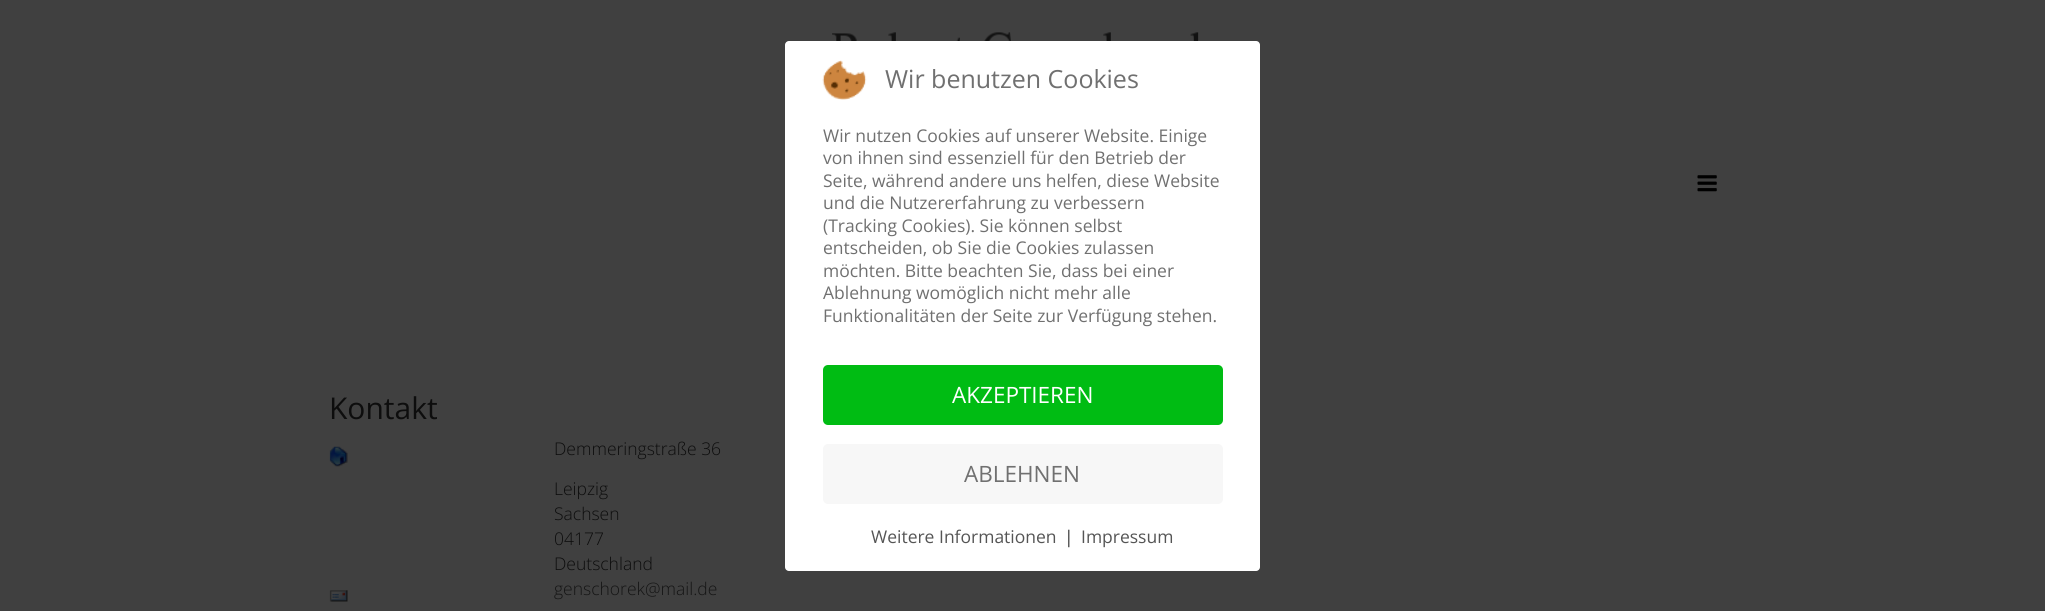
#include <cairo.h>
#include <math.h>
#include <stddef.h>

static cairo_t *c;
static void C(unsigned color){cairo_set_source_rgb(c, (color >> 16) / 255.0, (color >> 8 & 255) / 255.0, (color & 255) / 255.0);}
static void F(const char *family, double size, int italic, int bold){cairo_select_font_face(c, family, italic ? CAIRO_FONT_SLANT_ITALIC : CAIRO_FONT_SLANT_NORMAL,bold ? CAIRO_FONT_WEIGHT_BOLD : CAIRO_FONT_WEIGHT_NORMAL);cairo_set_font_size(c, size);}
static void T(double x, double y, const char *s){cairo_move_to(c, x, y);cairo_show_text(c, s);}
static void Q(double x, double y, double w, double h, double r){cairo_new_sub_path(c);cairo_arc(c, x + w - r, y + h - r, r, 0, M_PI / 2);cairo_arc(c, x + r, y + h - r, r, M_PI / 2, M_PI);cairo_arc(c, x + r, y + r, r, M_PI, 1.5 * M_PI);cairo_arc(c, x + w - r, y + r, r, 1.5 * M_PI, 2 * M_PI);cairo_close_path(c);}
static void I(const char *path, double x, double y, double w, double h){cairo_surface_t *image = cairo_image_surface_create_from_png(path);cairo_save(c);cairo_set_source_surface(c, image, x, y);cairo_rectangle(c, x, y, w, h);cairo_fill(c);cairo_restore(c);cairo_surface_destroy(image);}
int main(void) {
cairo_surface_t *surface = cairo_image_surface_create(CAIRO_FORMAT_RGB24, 2045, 611);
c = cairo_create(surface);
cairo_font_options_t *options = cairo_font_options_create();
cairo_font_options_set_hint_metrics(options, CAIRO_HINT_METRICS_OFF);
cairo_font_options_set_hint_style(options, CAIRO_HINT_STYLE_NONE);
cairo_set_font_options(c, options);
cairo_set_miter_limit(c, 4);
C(0x404040);
cairo_paint(c);
I("1.png",832,32,383,9);
I("2.png",1697,175,20,17);
F("Open Sans",30,0,0);
C(0x0d0d0d);
T(329,419,"Kontakt");
I("3.png",329,446,19,21);
F("Open Sans Light",17.5,0,0);
T(554,455,"Demmeringstraße 36");
T(554,495,"Leipzig");
T(554,520,"Sachsen");
T(554,545,"04177");
T(554,570,"Deutschland");
I("4.png",329,590,19,12);
C(0x151515);
T(554,595,"genschorek@mail.de");
C(0xffffff);
Q(785,41,475,530,4);
cairo_fill(c);
I("5.png",822,60,45,40);
F("Open Sans",25,0,0);
C(0x707070);
T(885,88,"Wir benutzen Cookies");
F("Open Sans",17.5,0,0);
T(823,142,"Wir nutzen Cookies auf unserer Website. Einige");
T(823,164,"von ihnen sind essenziell für den Betrieb der");
T(823,187,"Seite, während andere uns helfen, diese Website");
T(823,209,"und die Nutzererfahrung zu verbessern");
T(823,232,"(Tracking Cookies). Sie können selbst");
T(823,254,"entscheiden, ob Sie die Cookies zulassen");
T(823,277,"möchten. Bitte beachten Sie, dass bei einer");
T(823,299,"Ablehnung womöglich nicht mehr alle");
T(823,322,"Funktionalitäten der Seite zur Verfügung stehen.");
C(0x00bc13);
Q(823,365,400,60,5);
cairo_fill(c);
F("Open Sans",22.5,0,0);
C(0xffffff);
T(952,403,"AKZEPTIEREN");
C(0xf7f7f7);
Q(823,444,400,60,5);
cairo_fill(c);
C(0x707070);
T(964,482,"ABLEHNEN");
F("Open Sans",17.5,0,0);
C(0x555555);
T(871,543,"Weitere Informationen");
C(0x333333);
T(1064,543,"|");
C(0x555555);
T(1081,543,"Impressum");
cairo_surface_write_to_png(surface, "o.png");
cairo_font_options_destroy(options);
cairo_destroy(c);
cairo_surface_destroy(surface);
return 0;
}
